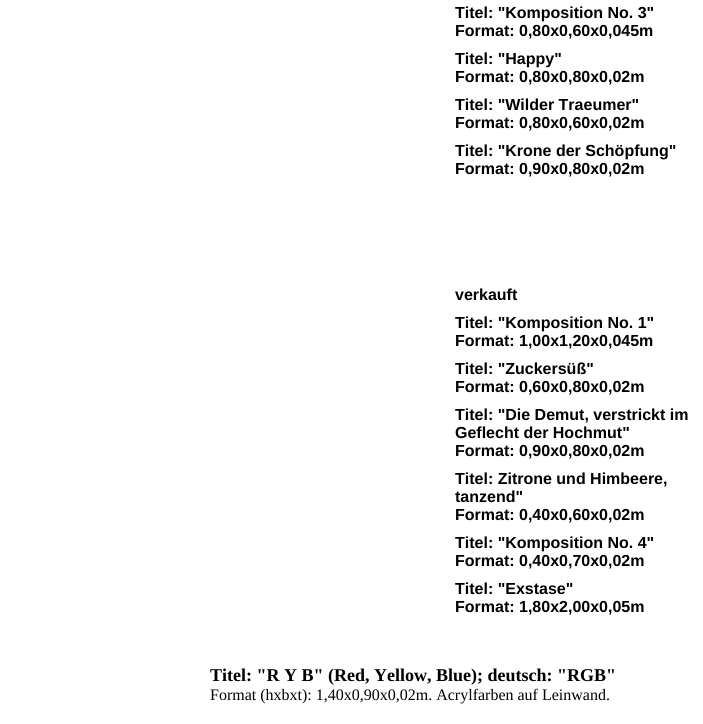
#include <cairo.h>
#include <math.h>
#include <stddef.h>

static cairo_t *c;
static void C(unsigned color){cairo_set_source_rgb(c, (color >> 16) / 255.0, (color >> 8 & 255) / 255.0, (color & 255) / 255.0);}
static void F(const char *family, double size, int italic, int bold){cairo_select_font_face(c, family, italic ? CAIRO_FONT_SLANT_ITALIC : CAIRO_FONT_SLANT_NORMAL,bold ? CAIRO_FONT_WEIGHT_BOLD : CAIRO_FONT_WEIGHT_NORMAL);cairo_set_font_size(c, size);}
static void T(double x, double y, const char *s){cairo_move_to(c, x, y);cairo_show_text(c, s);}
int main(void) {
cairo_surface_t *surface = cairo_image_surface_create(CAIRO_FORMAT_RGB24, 703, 724);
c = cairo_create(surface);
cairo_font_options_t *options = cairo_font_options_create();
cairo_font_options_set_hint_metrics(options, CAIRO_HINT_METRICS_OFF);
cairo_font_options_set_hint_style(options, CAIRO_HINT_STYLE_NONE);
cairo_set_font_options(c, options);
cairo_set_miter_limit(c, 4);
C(0xffffff);
cairo_paint(c);
F("Liberation Sans",16,0,1);
C(0x000000);
T(455,18,"Titel: \"Komposition No. 3\"");
T(455,36,"Format: 0,80x0,60x0,045m");
T(455,64,"Titel: \"Happy\"");
T(455,82,"Format: 0,80x0,80x0,02m");
T(455,110,"Titel: \"Wilder Traeumer\"");
T(455,128,"Format: 0,80x0,60x0,02m");
T(455,156,"Titel: \"Krone der Schöpfung\"");
T(455,174,"Format: 0,90x0,80x0,02m");
T(455,300,"verkauft");
T(455,328,"Titel: \"Komposition No. 1\"");
T(455,346,"Format: 1,00x1,20x0,045m");
T(455,374,"Titel: \"Zuckersüß\"");
T(455,392,"Format: 0,60x0,80x0,02m");
T(455,420,"Titel: \"Die Demut, verstrickt im");
T(455,438,"Geflecht der Hochmut\"");
T(455,456,"Format: 0,90x0,80x0,02m");
T(455,484,"Titel: Zitrone und Himbeere,");
T(455,502,"tanzend\"");
T(455,520,"Format: 0,40x0,60x0,02m");
T(455,548,"Titel: \"Komposition No. 4\"");
T(455,566,"Format: 0,40x0,70x0,02m");
T(455,594,"Titel: \"Exstase\"");
T(455,612,"Format: 1,80x2,00x0,05m");
F("Liberation Serif",18,0,1);
T(210,681,"Titel: \"R Y B\" (Red, Yellow, Blue); deutsch: \"RGB\"");
F("Liberation Serif",16,0,0);
T(210,700,"Format (hxbxt): 1,40x0,90x0,02m. Acrylfarben auf Leinwand.");
cairo_surface_write_to_png(surface, "o.png");
cairo_font_options_destroy(options);
cairo_destroy(c);
cairo_surface_destroy(surface);
return 0;
}
